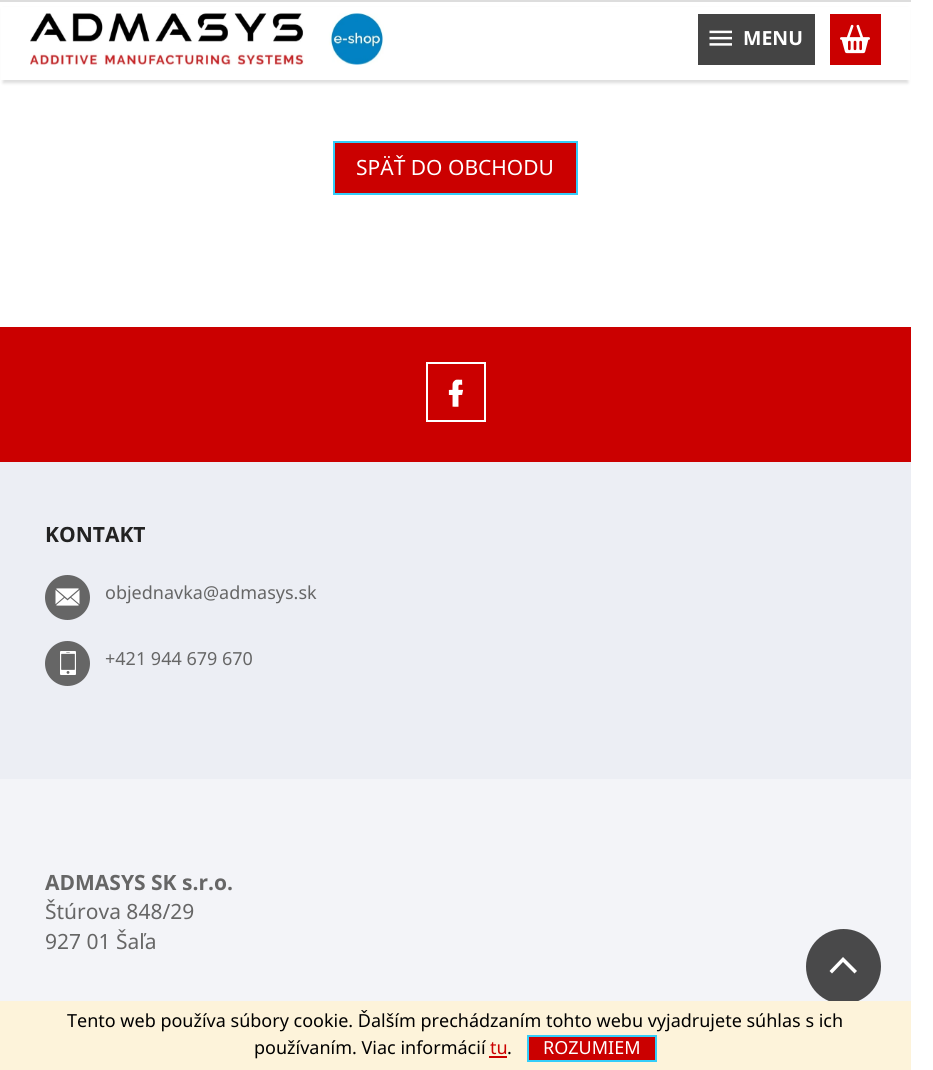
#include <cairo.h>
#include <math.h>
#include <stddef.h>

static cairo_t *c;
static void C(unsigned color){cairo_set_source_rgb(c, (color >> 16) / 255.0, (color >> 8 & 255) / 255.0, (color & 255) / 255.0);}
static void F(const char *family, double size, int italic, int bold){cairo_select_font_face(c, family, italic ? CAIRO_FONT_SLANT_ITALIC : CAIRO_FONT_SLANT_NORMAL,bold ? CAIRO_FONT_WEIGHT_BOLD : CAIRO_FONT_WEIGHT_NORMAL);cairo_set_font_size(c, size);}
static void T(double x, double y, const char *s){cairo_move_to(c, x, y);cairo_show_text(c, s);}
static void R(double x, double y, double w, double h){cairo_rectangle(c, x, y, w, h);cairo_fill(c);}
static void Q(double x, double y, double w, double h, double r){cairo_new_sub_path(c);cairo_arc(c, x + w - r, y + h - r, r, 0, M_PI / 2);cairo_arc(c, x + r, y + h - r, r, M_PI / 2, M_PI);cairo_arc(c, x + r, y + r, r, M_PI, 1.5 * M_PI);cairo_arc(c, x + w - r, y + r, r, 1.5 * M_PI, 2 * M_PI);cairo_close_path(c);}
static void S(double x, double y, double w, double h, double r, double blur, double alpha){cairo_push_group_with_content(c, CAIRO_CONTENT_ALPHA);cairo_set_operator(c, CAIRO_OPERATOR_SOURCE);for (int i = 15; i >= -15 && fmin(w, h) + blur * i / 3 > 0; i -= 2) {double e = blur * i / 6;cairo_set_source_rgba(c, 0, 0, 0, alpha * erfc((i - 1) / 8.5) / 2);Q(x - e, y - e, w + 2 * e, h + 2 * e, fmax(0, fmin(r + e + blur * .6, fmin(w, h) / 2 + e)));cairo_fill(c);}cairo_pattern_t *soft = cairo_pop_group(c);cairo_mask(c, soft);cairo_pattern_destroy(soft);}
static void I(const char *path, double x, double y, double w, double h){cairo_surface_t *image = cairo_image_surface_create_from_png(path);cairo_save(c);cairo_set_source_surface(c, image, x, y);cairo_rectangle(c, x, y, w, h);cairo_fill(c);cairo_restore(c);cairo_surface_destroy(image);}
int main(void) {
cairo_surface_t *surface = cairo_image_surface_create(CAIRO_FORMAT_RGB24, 933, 1070);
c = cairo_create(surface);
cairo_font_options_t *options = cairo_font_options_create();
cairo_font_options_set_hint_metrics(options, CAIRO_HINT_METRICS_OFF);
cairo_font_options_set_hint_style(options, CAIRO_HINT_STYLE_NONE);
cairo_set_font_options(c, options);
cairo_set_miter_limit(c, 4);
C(0xffffff);
cairo_paint(c);
C(0xdddddd);
S(3,9,905,74,0,1.5,1);
C(0xffffff);
R(1,7,909,73);
C(0xdddddd);
R(0,0,911,2);
I("1.png",30,13,354,52);
C(0x444444);
R(698,14,117,51);
I("2.png",709,30,23,16);
F("Noto Sans",19.5,0,1);
C(0xffffff);
T(743,45,"MENU");
C(0xcb0000);
R(830,14,51,51);
I("3.png",840,24,30,30);
cairo_rectangle(c,334,142,243,52);
cairo_fill_preserve(c);
C(0x34cdf9);
cairo_stroke(c);
F("Noto Sans",21,0,0);
C(0xffffff);
T(356,175,"SPÄŤ DO OBCHODU");
C(0xf3f4f8);
R(0,779,911,222);
C(0xcb0000);
R(0,327,911,135);
cairo_rectangle(c,427,363,58,58);
C(0xffffff);
cairo_stroke(c);
I("4.png",448,379,15,28);
C(0xeceef4);
R(0,462,911,317);
F("Noto Sans",21,0,1);
C(0x222222);
T(45,542,"KONTAKT");
C(0x666666);
cairo_new_path(c);
cairo_arc(c,67.5,597.5,22.5,0,2 * M_PI);
cairo_fill(c);
I("5.png",55,588,25,18);
F("Noto Sans",18,0,0);
T(105,599,"objednavka@admasys.sk");
cairo_new_path(c);
cairo_arc(c,67.5,663.5,22.5,0,2 * M_PI);
cairo_fill(c);
I("6.png",60,651,16,24);
T(105,665,"+421 944 679 670");
F("Noto Sans",21,0,1);
T(45,890,"ADMASYS SK s.r.o.");
F("Noto Sans",21,0,0);
T(45,919,"Štúrova 848/29");
T(45,949,"927 01 Šaľa");
C(0x49494a);
cairo_new_path(c);
cairo_arc(c,843.5,966.5,37.5,0,2 * M_PI);
cairo_fill(c);
C(0xffffff);
cairo_new_path(c);
cairo_move_to(c,829.5,971);
cairo_line_to(c,832,973.5);
cairo_line_to(c,843,962);
cairo_line_to(c,854.5,973.5);
cairo_line_to(c,857,971);
cairo_line_to(c,843,957);
cairo_close_path(c);
cairo_fill(c);
C(0xfdf3da);
R(0,1001,911,69);
F("Noto Sans",18,0,0);
C(0x000000);
T(67,1027,"Tento web používa súbory cookie. Ďalším prechádzaním tohto webu vyjadrujete súhlas s ich");
T(254,1054,"používaním. Viac informácií");
C(0xcb0000);
T(490,1054,"tu");
R(489,1056,18,2);
C(0x000000);
T(507,1054,".");
C(0xcb0000);
cairo_rectangle(c,528,1036,128,25);
cairo_fill_preserve(c);
C(0x34cdf9);
cairo_stroke(c);
C(0xffffff);
T(543,1054,"ROZUMIEM");
cairo_surface_write_to_png(surface, "o.png");
cairo_font_options_destroy(options);
cairo_destroy(c);
cairo_surface_destroy(surface);
return 0;
}
